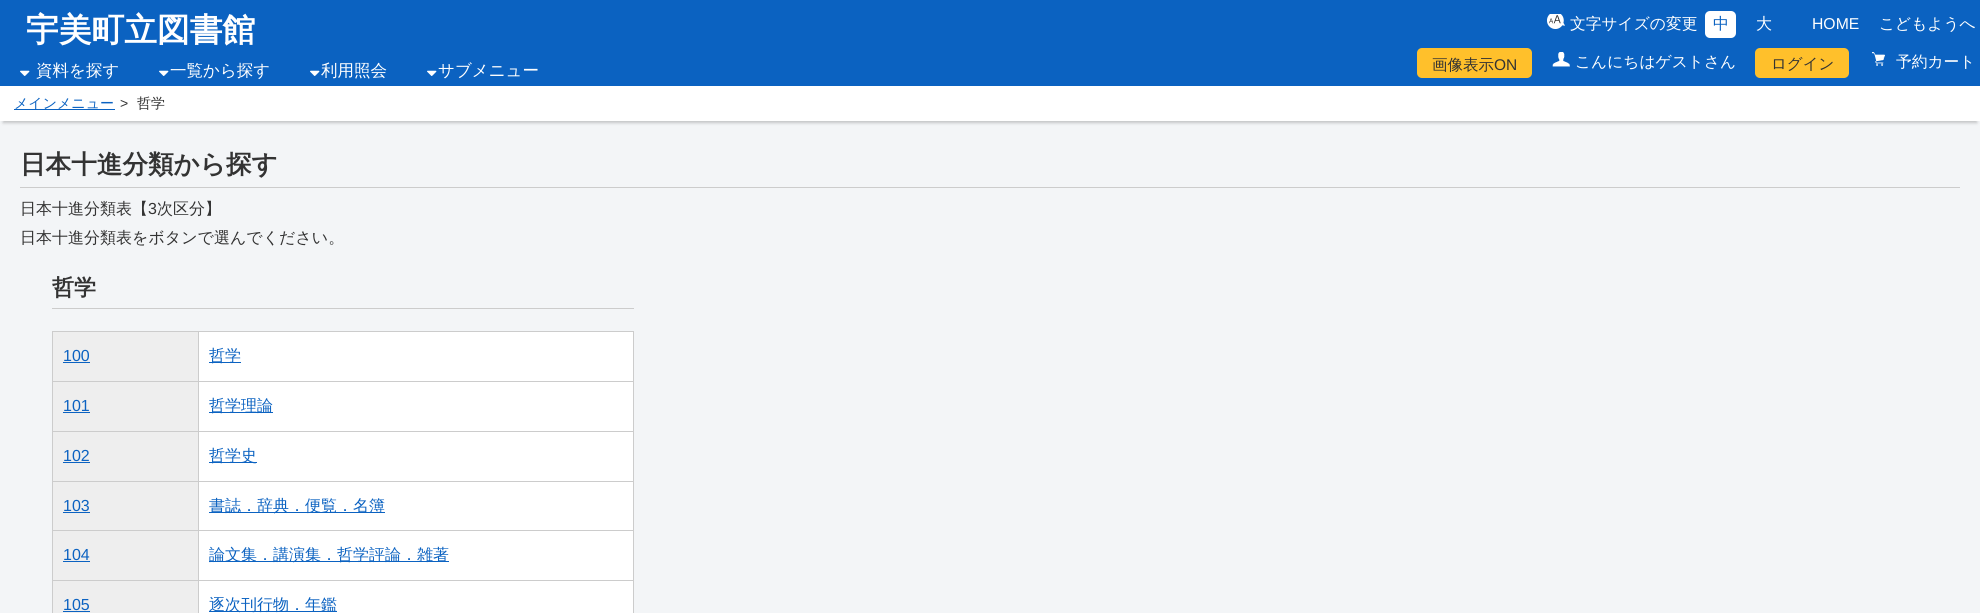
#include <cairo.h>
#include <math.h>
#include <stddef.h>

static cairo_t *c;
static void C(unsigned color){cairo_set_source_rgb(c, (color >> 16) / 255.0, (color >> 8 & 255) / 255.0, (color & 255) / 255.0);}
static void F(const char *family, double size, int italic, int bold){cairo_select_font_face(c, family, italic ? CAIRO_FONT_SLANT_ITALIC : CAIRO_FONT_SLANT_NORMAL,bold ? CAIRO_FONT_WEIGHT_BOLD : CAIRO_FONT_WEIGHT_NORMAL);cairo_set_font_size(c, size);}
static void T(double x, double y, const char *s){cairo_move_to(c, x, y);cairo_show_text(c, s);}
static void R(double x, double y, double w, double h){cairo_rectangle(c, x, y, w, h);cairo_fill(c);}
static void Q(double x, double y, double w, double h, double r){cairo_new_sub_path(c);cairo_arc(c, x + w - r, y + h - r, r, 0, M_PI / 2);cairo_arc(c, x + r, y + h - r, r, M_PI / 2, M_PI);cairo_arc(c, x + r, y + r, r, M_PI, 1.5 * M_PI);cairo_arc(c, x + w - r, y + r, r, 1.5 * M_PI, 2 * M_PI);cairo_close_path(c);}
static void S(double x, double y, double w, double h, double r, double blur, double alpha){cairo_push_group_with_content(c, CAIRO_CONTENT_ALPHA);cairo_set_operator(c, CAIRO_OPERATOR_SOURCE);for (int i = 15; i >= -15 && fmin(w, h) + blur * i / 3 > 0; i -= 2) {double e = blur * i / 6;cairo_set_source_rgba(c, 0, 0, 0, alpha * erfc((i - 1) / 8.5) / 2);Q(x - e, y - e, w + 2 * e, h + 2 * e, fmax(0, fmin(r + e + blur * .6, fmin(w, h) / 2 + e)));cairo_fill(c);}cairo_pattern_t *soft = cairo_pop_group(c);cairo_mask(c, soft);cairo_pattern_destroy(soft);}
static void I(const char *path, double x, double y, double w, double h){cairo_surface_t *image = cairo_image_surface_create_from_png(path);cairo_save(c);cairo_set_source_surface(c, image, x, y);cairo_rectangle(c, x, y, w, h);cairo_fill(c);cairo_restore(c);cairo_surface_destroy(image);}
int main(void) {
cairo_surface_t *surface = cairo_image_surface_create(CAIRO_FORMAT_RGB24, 1980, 613);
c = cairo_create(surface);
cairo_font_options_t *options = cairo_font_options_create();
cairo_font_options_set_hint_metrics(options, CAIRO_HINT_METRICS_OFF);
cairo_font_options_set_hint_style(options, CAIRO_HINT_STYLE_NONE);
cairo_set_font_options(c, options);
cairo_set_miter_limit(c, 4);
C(0xf3f5f7);
cairo_paint(c);
C(0x0b62c1);
R(0,0,1980,86);
F("WenQuanYi Zen Hei",32.75,0,1);
C(0xffffff);
T(26,41,"宇美町立図書館");
I("1.png",20,70,10,6);
F("WenQuanYi Zen Hei Medium",16.5,0,0);
T(36,76,"資料を探す");
I("1.png",159,70,10,6);
T(170,76,"一覧から探す");
I("1.png",310,70,10,6);
T(321,76,"利用照会");
I("1.png",427,70,10,6);
T(438,76,"サブメニュー");
I("2.png",1547,14,18,15);
F("WenQuanYi Zen Hei Medium",15.75,0,0);
T(1570,29,"文字サイズの変更");
Q(1705,11,31,27,5);
cairo_fill(c);
F("WenQuanYi Zen Hei Medium",16,0,0);
C(0x0b62c1);
T(1713,29,"中");
C(0xffffff);
T(1756,29,"大");
F("Liberation Sans",15.75,0,0);
T(1812,29,"HOME");
F("WenQuanYi Zen Hei Medium",15.75,0,0);
T(1879,29,"こどもようへ");
C(0xffc02b);
Q(1417,48,115,30,5);
cairo_fill(c);
F("WenQuanYi Zen Hei Medium",15.5,0,0);
C(0x333333);
T(1432,70,"画像表示");
F("Liberation Sans",15.5,0,0);
T(1494,70,"ON");
I("3.png",1552,52,18,15);
F("WenQuanYi Zen Hei Medium",15.75,0,0);
C(0xffffff);
T(1575,67,"こんにちはゲストさん");
C(0xffc02b);
Q(1755,48,94,30,5);
cairo_fill(c);
F("WenQuanYi Zen Hei Medium",15.5,0,0);
C(0x333333);
T(1771,69,"ログイン");
I("4.png",1872,52,13,14);
F("WenQuanYi Zen Hei Medium",15.75,0,0);
C(0xffffff);
T(1896,67,"予約カート");
C(0x000000);
S(3,94,1974,29,0,1.5,.2);
C(0xffffff);
R(0,86,1980,35);
C(0x0b62c1);
R(14,109,101,1);
F("WenQuanYi Zen Hei Medium",14,0,0);
T(14,108,"メインメニュー");
F("Liberation Sans",14,0,0);
C(0x333333);
T(120,108,">");
F("WenQuanYi Zen Hei Medium",14,0,0);
T(137,108,"哲学");
C(0xcccccc);
R(20,187,1940,1);
F("WenQuanYi Zen Hei",25.6,0,1);
C(0x333333);
T(20,173,"日本十進分類から探す");
F("WenQuanYi Zen Hei Medium",16,0,0);
T(20,214,"日本十進分類表【");
F("Liberation Sans",16,0,0);
T(148,214,"3");
F("WenQuanYi Zen Hei Medium",16,0,0);
T(157,214,"次区分】");
T(20,243,"日本十進分類表をボタンで選んでください。");
C(0xcccccc);
R(52,308,582,1);
F("WenQuanYi Zen Hei",22,0,1);
C(0x333333);
T(52,295,"哲学");
C(0xeeeeee);
R(53,332,145,281);
C(0xcccccc);
R(633,331,1,282);
R(52,331,1,282);
F("Liberation Sans",16,0,0);
C(0x0b62c1);
T(63,361,"100");
R(63,362,27,1);
C(0xffffff);
R(199,332,434,49);
C(0xcccccc);
R(53,331,580,1);
R(198,331,1,50);
C(0x0b62c1);
R(209,362,32,1);
F("WenQuanYi Zen Hei Medium",16,0,0);
T(209,361,"哲学");
F("Liberation Sans",16,0,0);
T(63,411,"101");
R(63,412,27,1);
C(0xffffff);
R(199,382,434,49);
C(0xcccccc);
R(53,381,580,1);
R(198,381,1,50);
C(0x0b62c1);
R(209,412,64,1);
F("WenQuanYi Zen Hei Medium",16,0,0);
T(209,411,"哲学理論");
F("Liberation Sans",16,0,0);
T(63,461,"102");
R(63,462,27,1);
C(0xffffff);
R(199,432,434,49);
C(0xcccccc);
R(53,431,580,1);
R(198,431,1,50);
C(0x0b62c1);
R(209,462,48,1);
F("WenQuanYi Zen Hei Medium",16,0,0);
T(209,461,"哲学史");
F("Liberation Sans",16,0,0);
T(63,511,"103");
R(63,512,27,1);
C(0xffffff);
R(199,482,434,48);
C(0xcccccc);
R(53,481,580,1);
R(198,481,1,49);
C(0x0b62c1);
R(209,512,176,1);
F("WenQuanYi Zen Hei Medium",16,0,0);
T(209,511,"書誌．辞典．便覧．名簿");
F("Liberation Sans",16,0,0);
T(63,560,"104");
R(63,561,27,1);
C(0xffffff);
R(199,531,434,49);
C(0xcccccc);
R(53,530,580,1);
R(198,530,1,50);
C(0x0b62c1);
R(209,561,240,1);
F("WenQuanYi Zen Hei Medium",16,0,0);
T(209,560,"論文集．講演集．哲学評論．雑著");
F("Liberation Sans",16,0,0);
T(63,610,"105");
R(63,611,27,1);
C(0xffffff);
R(199,581,434,32);
C(0xcccccc);
R(53,580,580,1);
R(198,580,1,33);
C(0x0b62c1);
R(209,611,128,1);
F("WenQuanYi Zen Hei Medium",16,0,0);
T(209,610,"逐次刊行物．年鑑");
cairo_surface_write_to_png(surface, "o.png");
cairo_font_options_destroy(options);
cairo_destroy(c);
cairo_surface_destroy(surface);
return 0;
}
